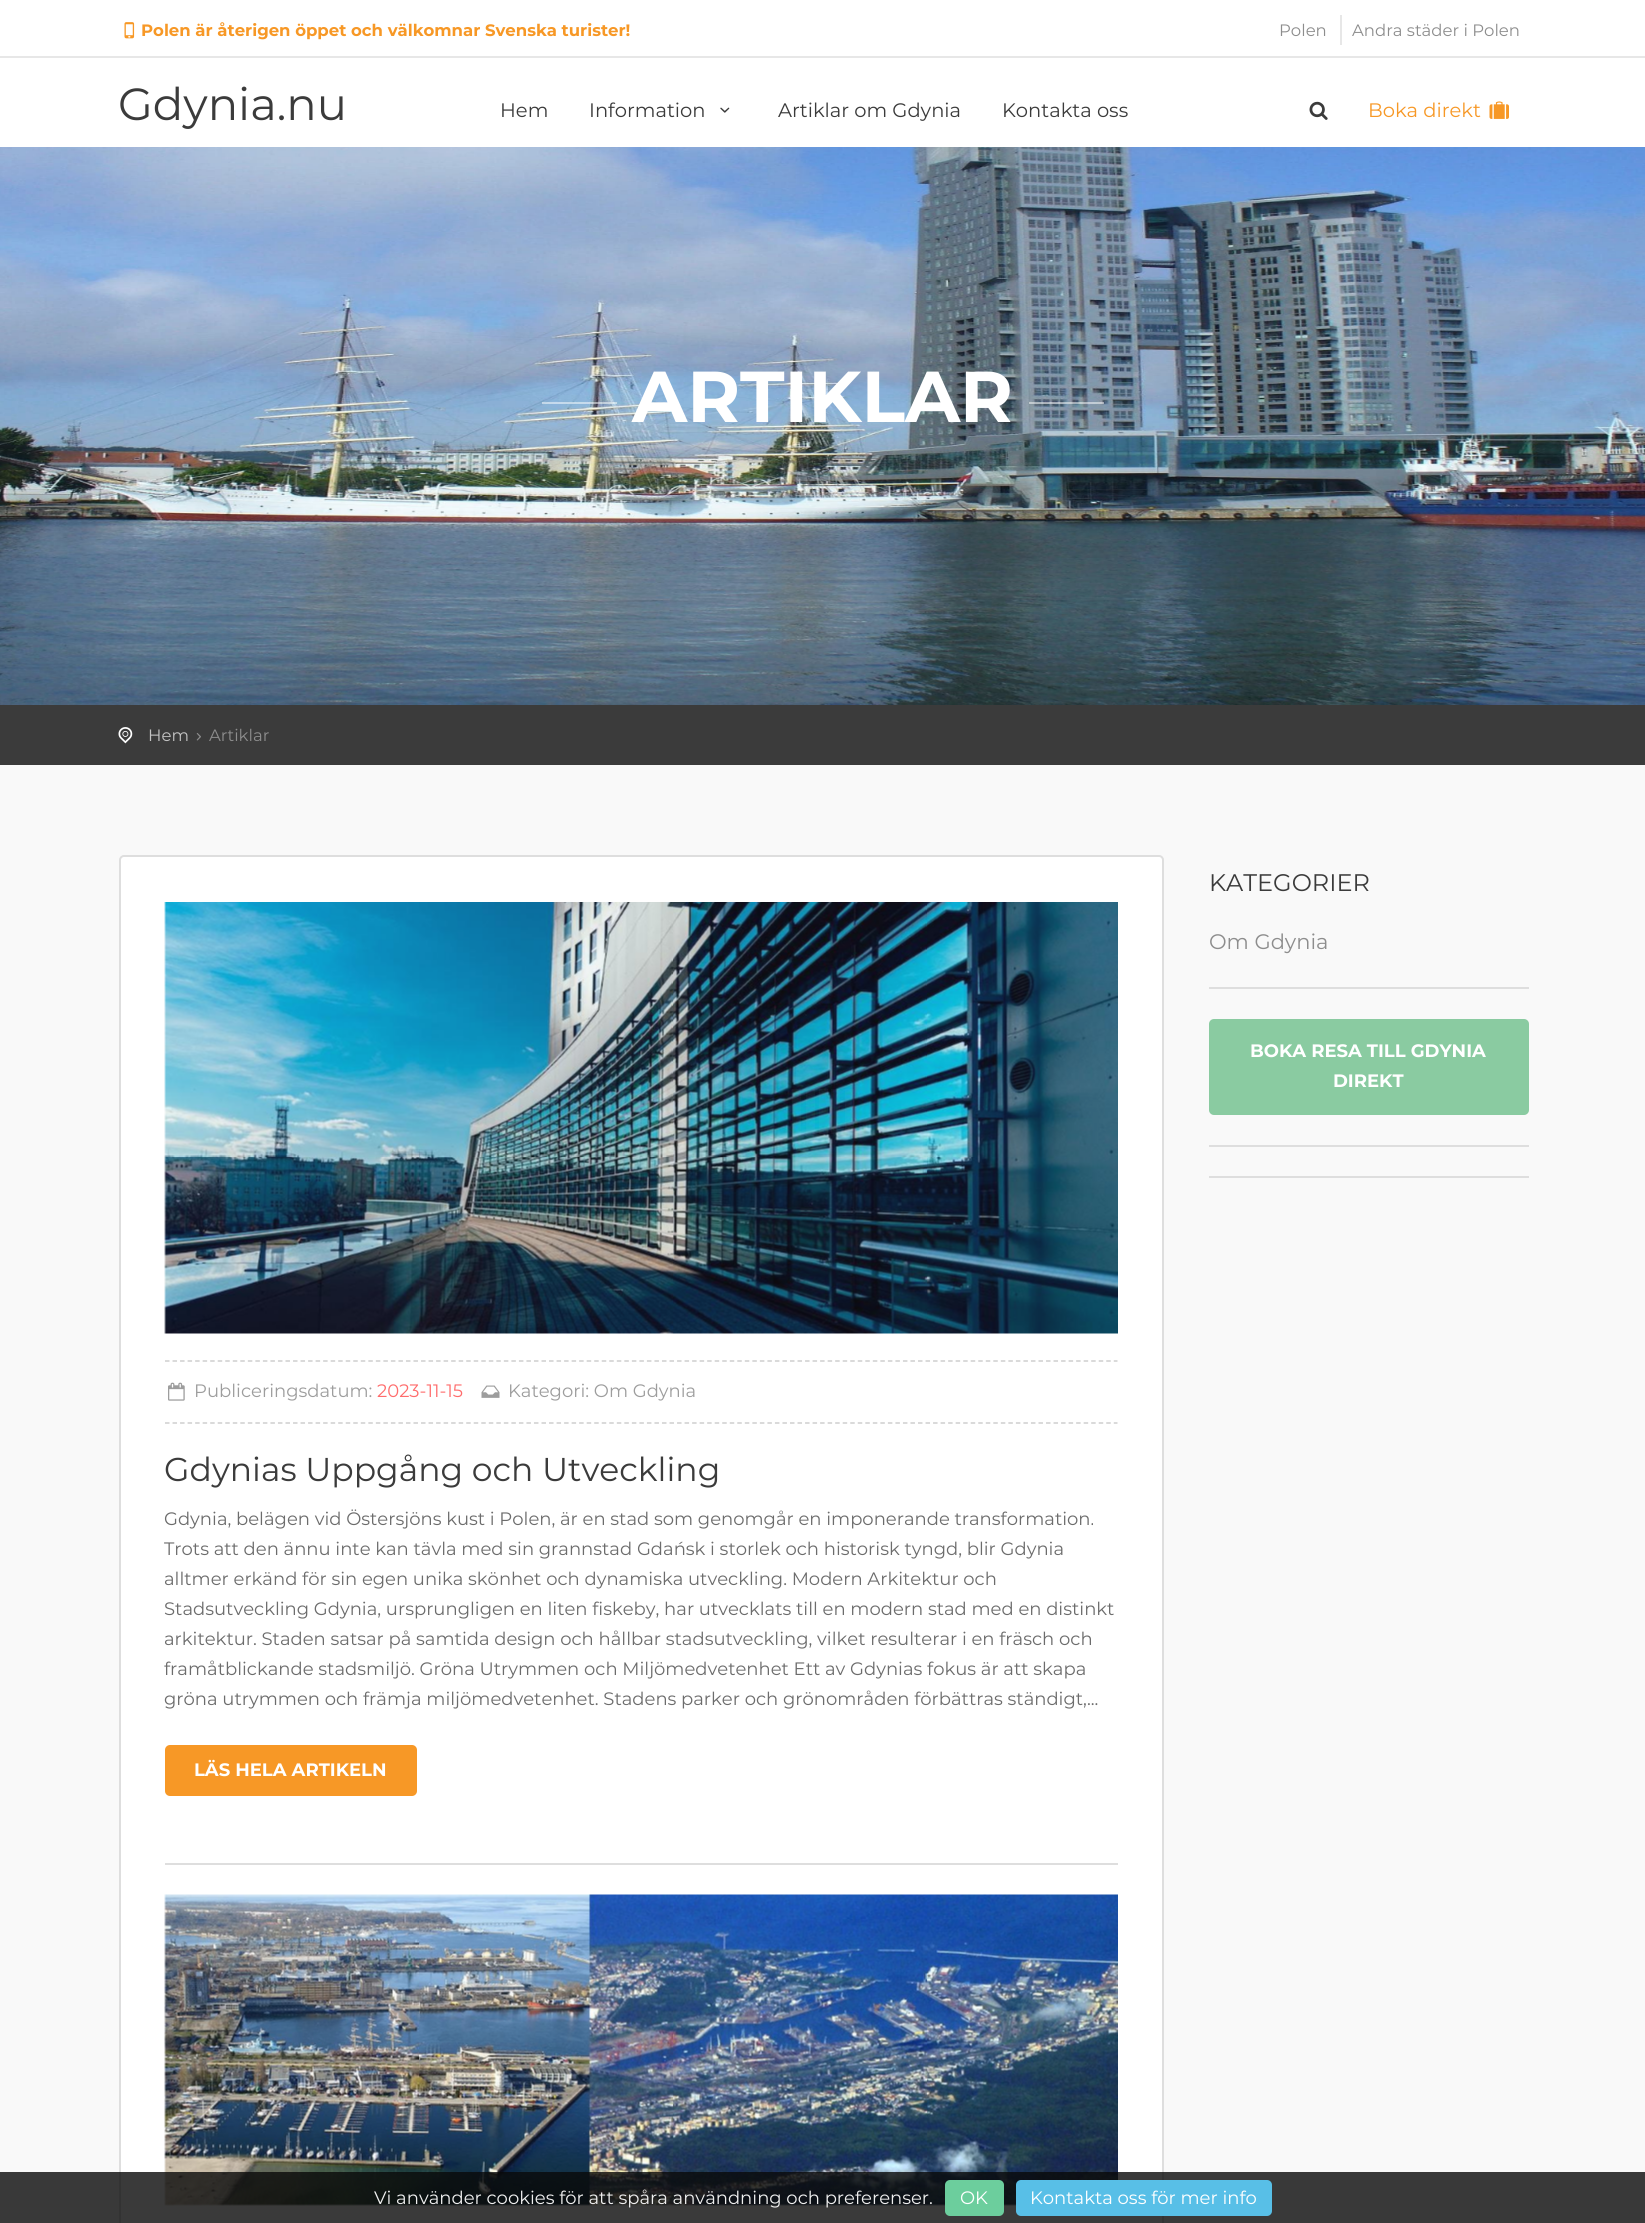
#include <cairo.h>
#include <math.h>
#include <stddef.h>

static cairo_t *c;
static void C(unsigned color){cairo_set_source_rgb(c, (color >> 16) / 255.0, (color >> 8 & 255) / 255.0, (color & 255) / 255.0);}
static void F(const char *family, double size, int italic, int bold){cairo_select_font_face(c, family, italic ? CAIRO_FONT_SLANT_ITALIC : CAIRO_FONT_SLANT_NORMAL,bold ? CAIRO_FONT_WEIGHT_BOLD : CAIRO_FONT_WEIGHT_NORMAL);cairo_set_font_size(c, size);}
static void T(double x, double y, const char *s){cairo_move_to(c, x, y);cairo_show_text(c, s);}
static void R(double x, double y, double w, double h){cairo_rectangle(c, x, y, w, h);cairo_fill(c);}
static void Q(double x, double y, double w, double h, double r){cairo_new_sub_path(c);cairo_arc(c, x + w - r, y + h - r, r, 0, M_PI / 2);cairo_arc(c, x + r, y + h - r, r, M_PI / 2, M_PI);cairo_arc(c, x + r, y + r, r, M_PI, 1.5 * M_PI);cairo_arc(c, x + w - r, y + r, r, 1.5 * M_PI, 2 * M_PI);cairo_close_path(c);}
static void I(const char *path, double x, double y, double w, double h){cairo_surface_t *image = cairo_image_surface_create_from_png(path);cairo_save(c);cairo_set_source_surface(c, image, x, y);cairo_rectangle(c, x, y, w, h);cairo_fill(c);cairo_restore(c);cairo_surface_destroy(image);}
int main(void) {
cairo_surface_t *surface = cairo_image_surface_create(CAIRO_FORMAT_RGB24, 1645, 2223);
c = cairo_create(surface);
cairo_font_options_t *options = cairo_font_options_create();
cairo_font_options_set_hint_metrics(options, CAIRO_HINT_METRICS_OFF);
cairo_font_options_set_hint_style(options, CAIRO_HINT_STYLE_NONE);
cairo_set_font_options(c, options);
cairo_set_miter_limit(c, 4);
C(0xf9f9f9);
cairo_paint(c);
C(0xffffff);
R(0,0,1645,147);
C(0xe7e7e7);
R(0,56,1645,2);
I("1.png",124,22,11,17);
F("Montserrat",16.5,0,1);
C(0xf79826);
T(141,36,"Polen är återigen öppet och välkomnar Svenska turister!");
F("Montserrat",16.5,0,0);
C(0x8d8d8d);
T(1279,36,"Polen");
C(0xe7e7e7);
R(1340,15,2,30);
C(0x8d8d8d);
T(1352,36,"Andra städer i Polen");
F("Montserrat",45,0,0);
C(0x3b3b3b);
T(118,120,"Gdynia.nu");
F("Montserrat",19.5,0,0);
T(500,117,"Hem");
T(589,117,"Information");
I("2.png",720,107,10,6);
T(778,117,"Artiklar om Gdynia");
T(1002,117,"Kontakta oss");
I("3.png",1309,101,19,19);
C(0xf79826);
T(1368,117,"Boka direkt");
I("4.png",1489,101,20,18);
I("5.png",0,147,1645,558);
cairo_set_source_rgba(c,1,1,1,0.5);
R(542,402,75,2);
F("Montserrat",72,0,1);
C(0xffffff);
T(632,422,"ARTIKLAR");
cairo_set_source_rgba(c,1,1,1,0.5);
R(1029,402,75,2);
C(0x3b3b3b);
R(0,705,1645,60);
I("6.png",118,727,15,17);
F("Montserrat",16.5,0,0);
C(0xc4c4c4);
T(148,741,"Hem");
I("7.png",196,733,5,8);
C(0x8d8d8d);
T(209,741,"Artiklar");
F("Montserrat",24,0,0);
C(0x3b3b3b);
T(1209,891,"KATEGORIER");
F("Montserrat",21,0,0);
C(0x8d8d8d);
T(1209,949,"Om Gdynia");
C(0xdedede);
R(1209,987,320,2);
C(0x8acba1);
Q(1209,1019,320,96,5);
cairo_fill(c);
F("Montserrat",18,0,1);
C(0xffffff);
T(1250,1057,"BOKA RESA TILL GDYNIA");
T(1333,1087,"DIREKT");
C(0xdedede);
R(1209,1145,320,2);
R(1209,1176,320,2);
C(0xffffff);
Q(120,856,1043,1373,4);
cairo_fill_preserve(c);
C(0xdedede);
cairo_stroke(c);
I("8.png",164,902,954,432);
cairo_new_path(c);
cairo_move_to(c,165,1361);
cairo_line_to(c,1117.5,1361);
C(0xcecece);
cairo_set_line_width(c,1.5);
cairo_set_dash(c,(double[]){4.5,3.03},2,0);
cairo_stroke(c);
cairo_new_path(c);
cairo_move_to(c,165,1423);
cairo_line_to(c,1117.5,1423);
cairo_stroke(c);
I("9.png",168,1382,17,19);
F("Montserrat",18,0,0);
C(0x9d9d9d);
T(194,1397,"Publiceringsdatum:");
C(0xff6c6c);
T(377,1397,"2023-11-15");
I("10.png",481,1385,19,13);
C(0x9d9d9d);
T(508,1397,"Kategori: Om Gdynia");
F("Montserrat",33,0,0);
C(0x3b3b3b);
T(164,1481,"Gdynias Uppgång och Utveckling");
F("Montserrat",18,0,0);
C(0x6c6c6c);
T(164,1525,"Gdynia, belägen vid Östersjöns kust i Polen, är en stad som genomgår en imponerande transformation.");
T(164,1555,"Trots att den ännu inte kan tävla med sin grannstad Gdańsk i storlek och historisk tyngd, blir Gdynia");
T(164,1585,"alltmer erkänd för sin egen unika skönhet och dynamiska utveckling. Modern Arkitektur och");
T(164,1615,"Stadsutveckling Gdynia, ursprungligen en liten fiskeby, har utvecklats till en modern stad med en distinkt");
T(164,1645,"arkitektur. Staden satsar på samtida design och hållbar stadsutveckling, vilket resulterar i en fräsch och");
T(164,1675,"framåtblickande stadsmiljö. Gröna Utrymmen och Miljömedvetenhet Ett av Gdynias fokus är att skapa");
T(164,1705,"gröna utrymmen och främja miljömedvetenhet. Stadens parker och grönområden förbättras ständigt,...");
C(0xf79826);
Q(165,1745,252,51,5);
cairo_fill(c);
F("Montserrat",18,0,1);
C(0xffffff);
T(194,1776,"LÄS HELA ARTIKELN");
C(0xdedede);
R(165,1863,953,2);
I("11.png",164,1894,954,312);
cairo_set_source_rgba(c,0.8,0.8,0.8,0.04);
R(792,1089,9,45);
R(806,1089,9,45);
R(819,1089,9,45);
R(831,1089,9,45);
R(845,1089,9,45);
cairo_set_source_rgba(c,0.039,0.039,0.039,0.8);
R(0,2172,1645,51);
F("Montserrat",18,0,0);
C(0xefefef);
T(374,2204,"Vi använder cookies för att spåra användning och preferenser.");
C(0x6cce9d);
Q(945,2180,59,36,5);
cairo_fill(c);
C(0xffffff);
T(960,2204,"OK");
C(0x58bfe7);
Q(1016,2180,256,36,5);
cairo_fill(c);
C(0xffffff);
T(1030,2204,"Kontakta oss för mer info");
cairo_surface_write_to_png(surface, "o.png");
cairo_font_options_destroy(options);
cairo_destroy(c);
cairo_surface_destroy(surface);
return 0;
}
